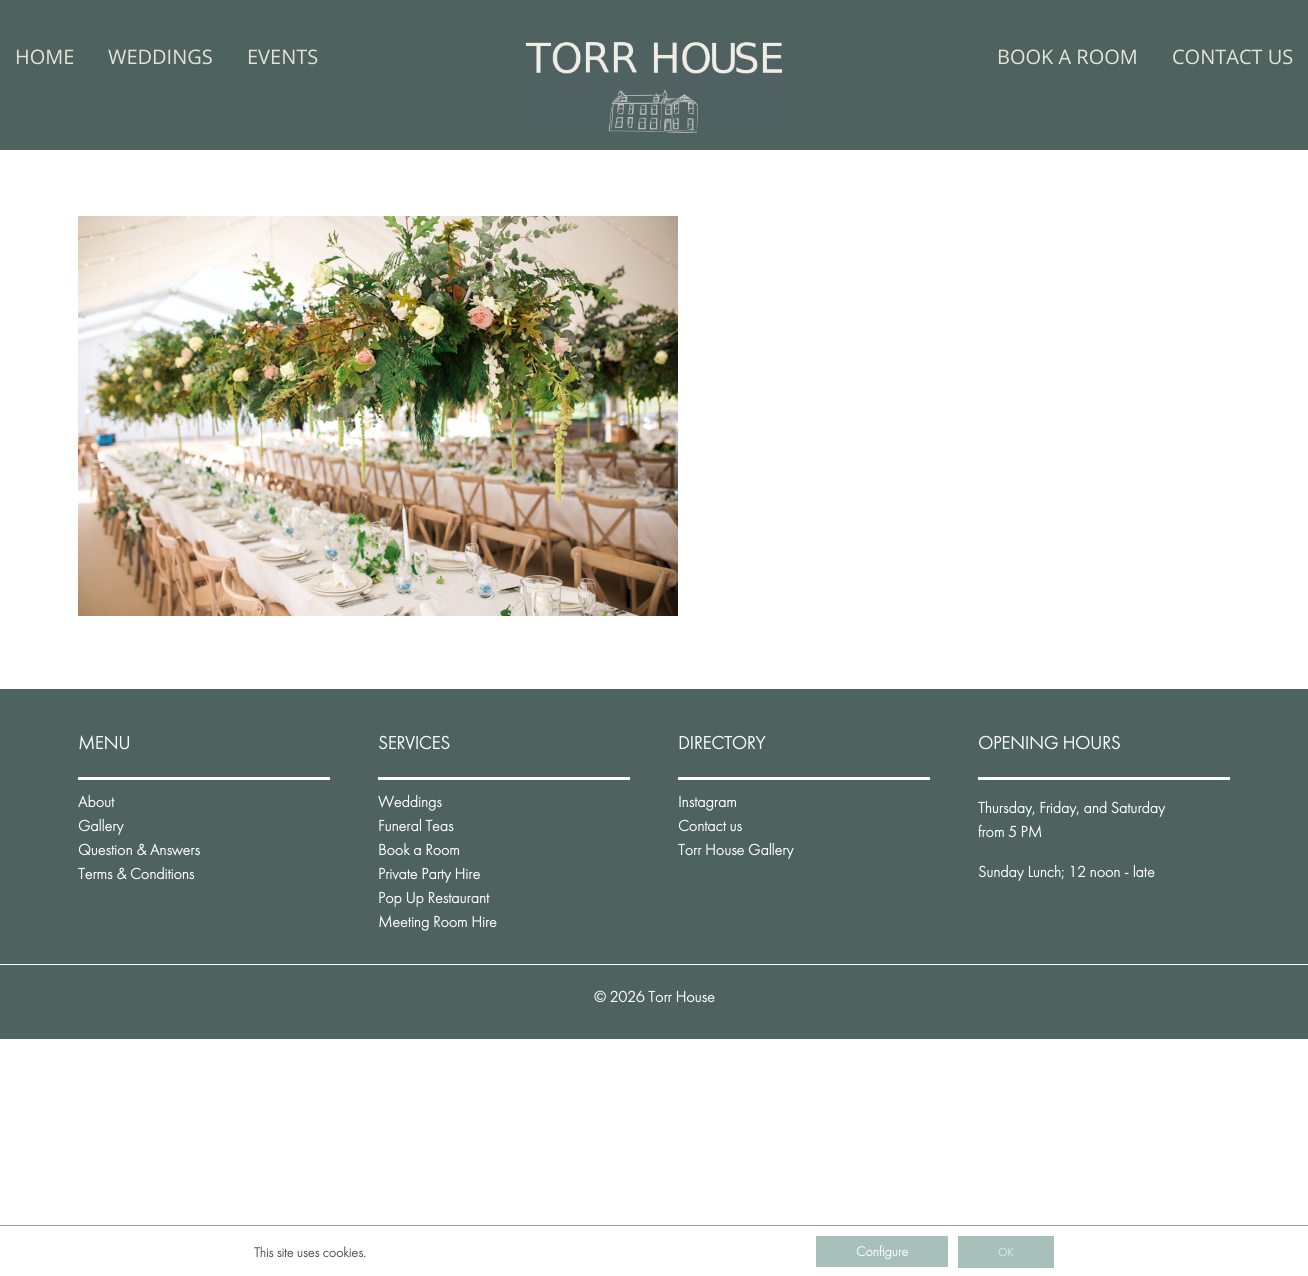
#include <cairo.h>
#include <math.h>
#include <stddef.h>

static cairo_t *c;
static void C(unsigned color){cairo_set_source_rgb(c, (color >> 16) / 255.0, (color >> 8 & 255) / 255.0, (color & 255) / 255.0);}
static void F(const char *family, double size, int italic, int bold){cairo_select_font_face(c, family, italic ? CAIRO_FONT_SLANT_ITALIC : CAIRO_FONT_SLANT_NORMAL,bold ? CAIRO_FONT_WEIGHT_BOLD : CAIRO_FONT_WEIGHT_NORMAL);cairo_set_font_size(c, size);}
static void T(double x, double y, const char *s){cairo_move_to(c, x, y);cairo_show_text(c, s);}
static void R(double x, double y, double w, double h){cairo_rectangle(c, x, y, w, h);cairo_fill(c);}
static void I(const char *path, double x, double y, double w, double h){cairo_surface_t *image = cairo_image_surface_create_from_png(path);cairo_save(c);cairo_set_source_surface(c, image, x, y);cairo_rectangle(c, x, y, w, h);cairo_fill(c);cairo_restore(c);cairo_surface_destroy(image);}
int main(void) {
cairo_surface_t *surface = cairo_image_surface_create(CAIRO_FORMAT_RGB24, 1308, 1276);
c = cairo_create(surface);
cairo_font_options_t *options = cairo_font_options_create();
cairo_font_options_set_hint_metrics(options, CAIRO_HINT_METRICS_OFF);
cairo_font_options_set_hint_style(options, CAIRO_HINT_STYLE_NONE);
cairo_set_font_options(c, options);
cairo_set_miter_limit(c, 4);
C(0xffffff);
cairo_paint(c);
C(0x4e6260);
R(0,0,1308,150);
F("Open Sans",20,0,0);
C(0xe4e3d9);
T(15,64,"HOME");
T(108,64,"WEDDINGS");
T(247,64,"EVENTS");
I("1.png",525,42,258,91);
T(997,64,"BOOK A ROOM");
T(1172,64,"CONTACT US");
I("2.png",78,216,600,400);
C(0x4e6260);
R(0,689,1308,350);
F("Futura PT",18.75,0,1);
C(0xffffff);
T(78,749,"MENU");
R(78,777,252,3);
F("Futura PT",16,0,1);
T(78,807,"About");
T(78,831,"Gallery");
T(78,855,"Question & Answers");
T(78,879,"Terms & Conditions");
F("Futura PT",18.75,0,1);
T(378,749,"SERVICES");
R(378,777,252,3);
F("Futura PT",16,0,1);
T(378,807,"Weddings");
T(378,831,"Funeral Teas");
T(378,855,"Book a Room");
T(378,879,"Private Party Hire");
T(378,903,"Pop Up Restaurant");
T(378,927,"Meeting Room Hire");
F("Futura PT",18.75,0,1);
T(678,749,"DIRECTORY");
R(678,777,252,3);
F("Futura PT",16,0,1);
T(678,807,"Instagram");
T(678,831,"Contact us");
T(678,855,"Torr House Gallery");
F("Futura PT",18.75,0,1);
T(978,749,"OPENING HOURS");
R(978,777,252,3);
F("Futura PT",16,0,1);
T(978,813,"Thursday, Friday, and Saturday");
T(978,837,"from 5 PM");
T(978,877,"Sunday Lunch; 12 noon - late");
R(0,964,1308,1);
T(594,1002,"© 2026 Torr House");
C(0x999999);
R(0,1225,1308,1);
F("Futura PT",14,0,1);
C(0x525252);
T(254,1257,"This site uses cookies.");
C(0xa7c0ba);
R(816,1236,132,31);
C(0xffffff);
T(856,1256,"Configure");
C(0xa7c0ba);
R(958,1236,96,32);
F("Futura PT Light",12,0,0);
C(0xffffff);
T(998,1256,"OK");
cairo_surface_write_to_png(surface, "o.png");
cairo_font_options_destroy(options);
cairo_destroy(c);
cairo_surface_destroy(surface);
return 0;
}
